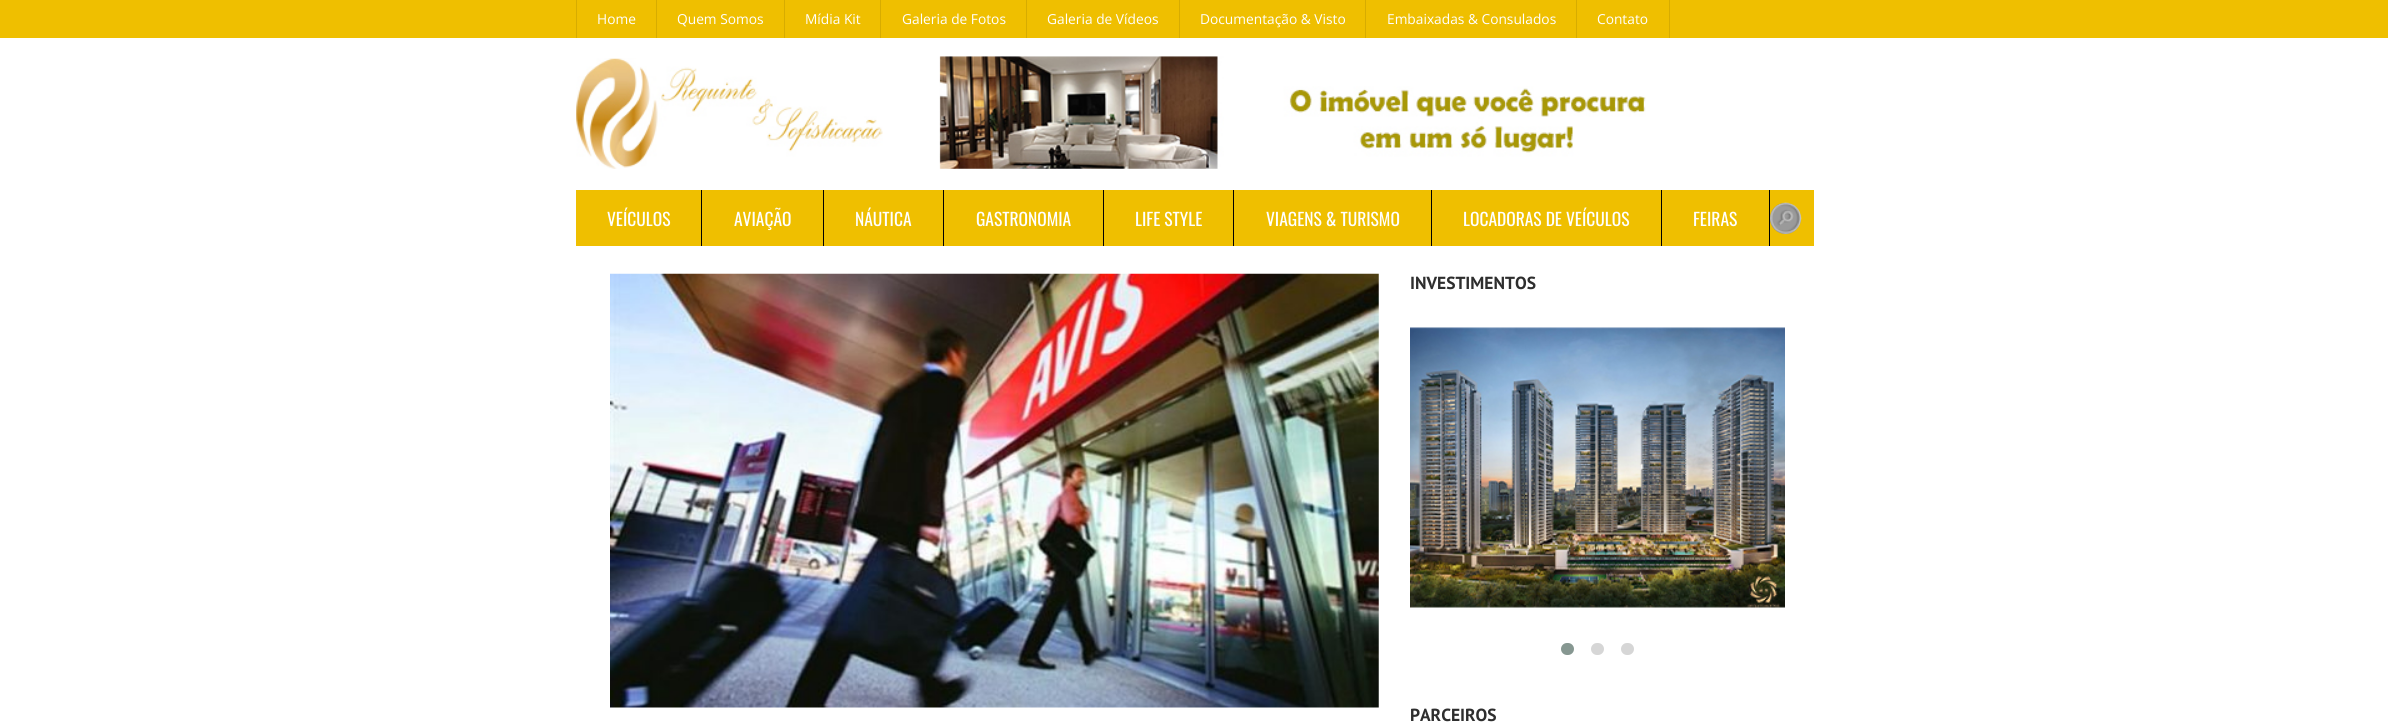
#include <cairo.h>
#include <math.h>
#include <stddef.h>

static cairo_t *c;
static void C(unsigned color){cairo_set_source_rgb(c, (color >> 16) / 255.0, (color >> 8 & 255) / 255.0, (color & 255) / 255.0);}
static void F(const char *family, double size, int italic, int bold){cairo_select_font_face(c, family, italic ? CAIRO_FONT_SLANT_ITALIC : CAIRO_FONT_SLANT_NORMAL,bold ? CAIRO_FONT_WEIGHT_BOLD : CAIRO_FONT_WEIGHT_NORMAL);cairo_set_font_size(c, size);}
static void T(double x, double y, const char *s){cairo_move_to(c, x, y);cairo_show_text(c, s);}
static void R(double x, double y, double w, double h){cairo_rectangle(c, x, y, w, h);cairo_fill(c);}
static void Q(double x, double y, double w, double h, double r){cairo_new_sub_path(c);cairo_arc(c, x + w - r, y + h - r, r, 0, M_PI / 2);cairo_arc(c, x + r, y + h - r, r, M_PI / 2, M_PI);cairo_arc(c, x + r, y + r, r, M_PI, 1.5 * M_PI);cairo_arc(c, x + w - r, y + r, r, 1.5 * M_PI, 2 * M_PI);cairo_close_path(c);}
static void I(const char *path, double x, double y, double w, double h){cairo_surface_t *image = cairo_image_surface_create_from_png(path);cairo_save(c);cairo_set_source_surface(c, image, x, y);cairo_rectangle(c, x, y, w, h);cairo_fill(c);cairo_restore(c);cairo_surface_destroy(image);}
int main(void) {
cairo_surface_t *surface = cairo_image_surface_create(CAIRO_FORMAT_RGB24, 2388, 723);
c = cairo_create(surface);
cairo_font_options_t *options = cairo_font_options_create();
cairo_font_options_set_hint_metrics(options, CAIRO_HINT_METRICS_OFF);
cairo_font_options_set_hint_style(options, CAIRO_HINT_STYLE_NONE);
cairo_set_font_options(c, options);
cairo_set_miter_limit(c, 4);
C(0xffffff);
cairo_paint(c);
C(0xefbf00);
R(0,0,2388,38);
C(0xd7ac00);
R(656,0,1,38);
R(576,0,1,38);
F("Open Sans",13.75,0,0);
C(0xffffff);
T(597,24,"Home");
C(0xd7ac00);
R(784,0,1,38);
C(0xffffff);
T(677,24,"Quem Somos");
C(0xd7ac00);
R(880,0,1,38);
C(0xffffff);
T(805,24,"Mídia Kit");
C(0xd7ac00);
R(1026,0,1,38);
C(0xffffff);
T(902,24,"Galeria de Fotos");
C(0xd7ac00);
R(1179,0,1,38);
C(0xffffff);
T(1047,24,"Galeria de Vídeos");
C(0xd7ac00);
R(1365,0,1,38);
C(0xffffff);
T(1200,24,"Documentação & Visto");
C(0xd7ac00);
R(1576,0,1,38);
C(0xffffff);
T(1387,24,"Embaixadas & Consulados");
C(0xd7ac00);
R(1669,0,1,38);
C(0xffffff);
T(1597,24,"Contato");
I("1.png",576,58,307,111);
I("2.png",939,56,707,113);
C(0xefbf00);
R(576,190,1238,56);
C(0x000000);
R(701,190,1,56);
F("Oswald",17.5,0,0);
C(0xffffff);
T(607,226,"VEÍCULOS");
C(0x000000);
R(823,190,1,56);
C(0xffffff);
T(734,226,"AVIAÇÃO");
C(0x000000);
R(943,190,1,56);
C(0xffffff);
T(855,226,"NÁUTICA");
C(0x000000);
R(1103,190,1,56);
C(0xffffff);
T(976,226,"GASTRONOMIA");
C(0x000000);
R(1233,190,1,56);
C(0xffffff);
T(1135,226,"LIFE STYLE");
C(0x000000);
R(1431,190,1,56);
C(0xffffff);
T(1266,226,"VIAGENS & TURISMO");
C(0x000000);
R(1661,190,1,56);
C(0xffffff);
T(1463,226,"LOCADORAS DE VEÍCULOS");
C(0x000000);
R(1769,190,1,56);
C(0xffffff);
T(1693,226,"FEIRAS");
C(0x9a9a9a);
cairo_new_path(c);
cairo_arc(c,1785.5,218.5,15.5,0,2 * M_PI);
cairo_fill(c);
I("3.png",1770,202,32,32);
I("4.png",610,273,769,435);
F("PT Sans",17.5,0,1);
C(0x2e2e2e);
T(1410,289,"INVESTIMENTOS");
I("5.png",1410,327,375,281);
C(0x869791);
Q(1561,643,13,12,6);
cairo_fill(c);
C(0xd6d6d6);
Q(1591,643,13,12,6);
cairo_fill(c);
Q(1621,643,13,12,6);
cairo_fill(c);
C(0x2e2e2e);
T(1410,721,"PARCEIROS");
cairo_surface_write_to_png(surface, "o.png");
cairo_font_options_destroy(options);
cairo_destroy(c);
cairo_surface_destroy(surface);
return 0;
}
